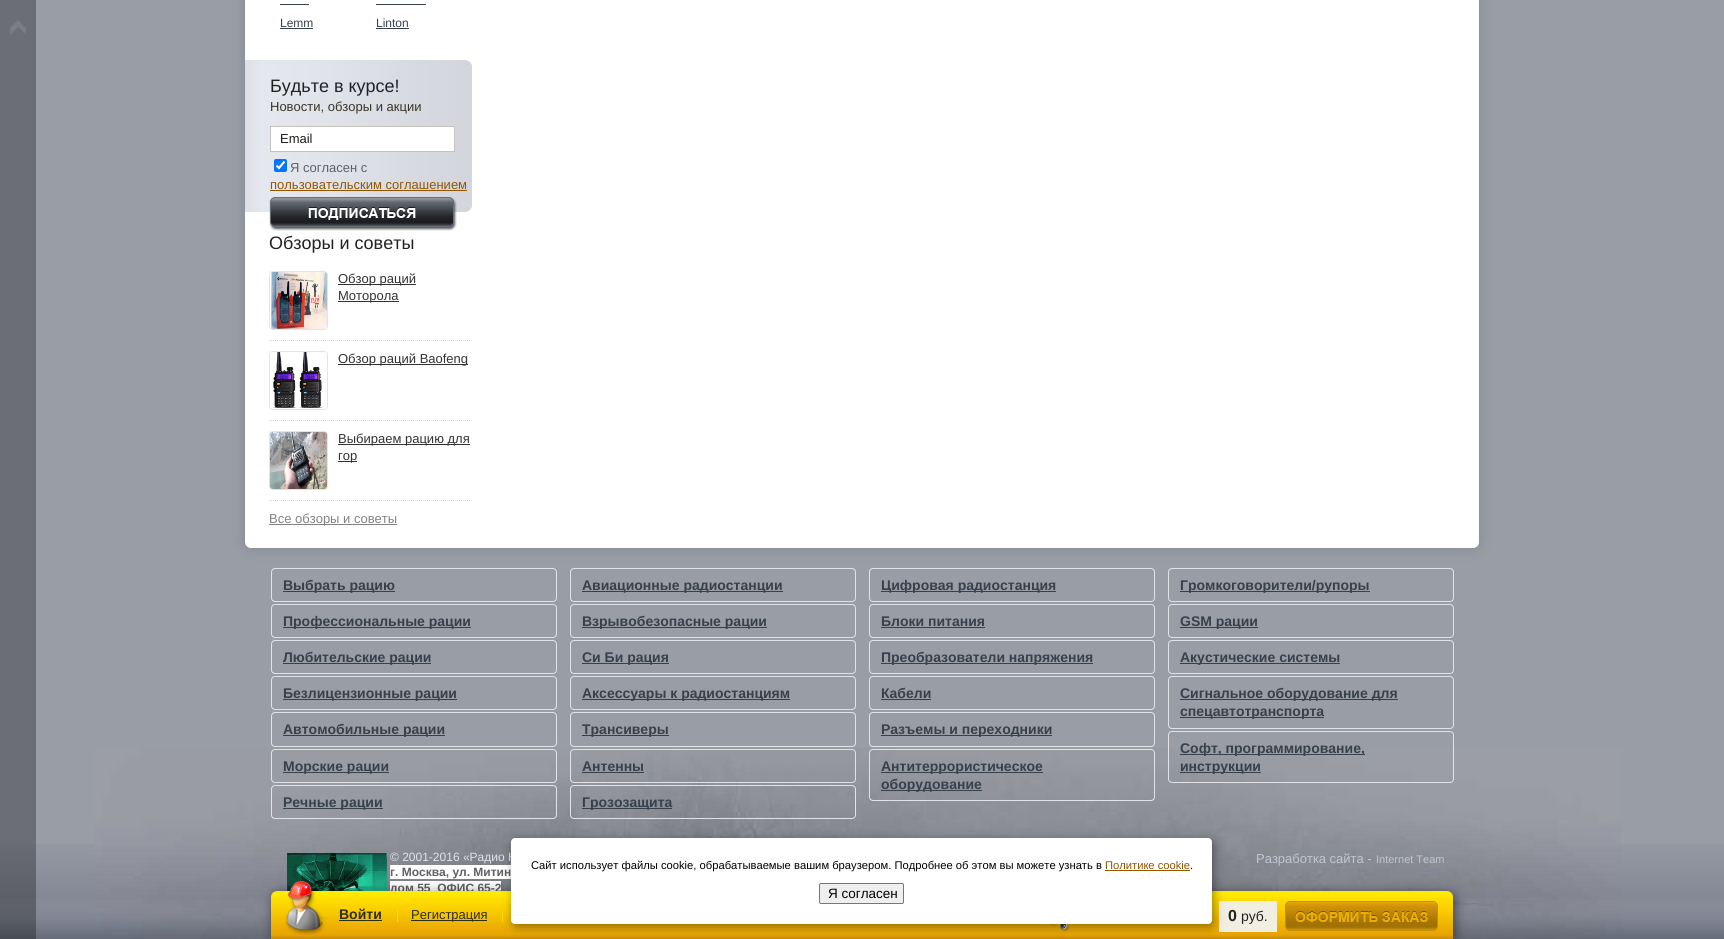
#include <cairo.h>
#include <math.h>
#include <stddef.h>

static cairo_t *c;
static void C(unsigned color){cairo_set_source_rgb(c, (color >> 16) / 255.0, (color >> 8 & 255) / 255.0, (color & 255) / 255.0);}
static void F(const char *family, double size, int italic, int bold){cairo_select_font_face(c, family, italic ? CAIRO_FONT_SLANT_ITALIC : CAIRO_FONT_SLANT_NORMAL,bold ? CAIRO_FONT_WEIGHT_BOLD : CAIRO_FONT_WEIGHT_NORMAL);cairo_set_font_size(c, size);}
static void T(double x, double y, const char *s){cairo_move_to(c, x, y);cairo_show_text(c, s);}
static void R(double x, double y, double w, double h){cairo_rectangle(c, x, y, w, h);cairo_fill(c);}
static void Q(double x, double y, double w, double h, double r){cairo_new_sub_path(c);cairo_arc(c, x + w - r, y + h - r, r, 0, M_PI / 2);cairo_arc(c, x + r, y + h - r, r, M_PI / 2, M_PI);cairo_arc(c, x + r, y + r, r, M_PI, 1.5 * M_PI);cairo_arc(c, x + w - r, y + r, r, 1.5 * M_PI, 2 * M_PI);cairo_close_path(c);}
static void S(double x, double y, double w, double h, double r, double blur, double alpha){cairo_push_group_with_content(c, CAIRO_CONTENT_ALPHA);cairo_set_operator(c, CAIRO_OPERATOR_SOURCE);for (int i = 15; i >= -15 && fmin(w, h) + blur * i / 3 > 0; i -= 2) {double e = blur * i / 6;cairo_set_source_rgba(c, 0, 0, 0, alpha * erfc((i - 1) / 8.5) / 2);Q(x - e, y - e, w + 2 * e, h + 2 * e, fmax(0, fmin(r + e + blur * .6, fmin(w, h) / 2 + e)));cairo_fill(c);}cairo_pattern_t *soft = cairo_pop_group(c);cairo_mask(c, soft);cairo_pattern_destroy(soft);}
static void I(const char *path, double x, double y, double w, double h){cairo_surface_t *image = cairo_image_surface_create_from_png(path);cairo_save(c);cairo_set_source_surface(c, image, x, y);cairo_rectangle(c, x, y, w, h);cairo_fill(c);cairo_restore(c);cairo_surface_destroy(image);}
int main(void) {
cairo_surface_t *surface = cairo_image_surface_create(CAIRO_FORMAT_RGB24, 1724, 939);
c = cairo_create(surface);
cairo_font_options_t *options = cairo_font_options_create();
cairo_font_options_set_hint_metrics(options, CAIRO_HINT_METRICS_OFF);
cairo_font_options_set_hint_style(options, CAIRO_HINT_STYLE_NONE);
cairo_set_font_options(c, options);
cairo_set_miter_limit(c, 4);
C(0x999da6);
cairo_paint(c);
I("1.png",0,844,1724,95);
I("3.png",94,748,1528,191);
I("14.png",0,898,1724,41);
cairo_set_source_rgba(c,0,0,0,0.3);
R(0,0,36,939);
I("2.png",10,20,16,15);
C(0x7c8088);
S(245,-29,1234,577,6,7.5,.75);
C(0xffffff);
Q(245,-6,1234,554,6);
cairo_fill(c);
C(0x37414c);
R(280,4,29,1);
R(376,4,50,1);
F("Liberation Sans",12,0,0);
T(280,27,"Lemm");
R(280,28,33,1);
T(376,27,"Linton");
R(376,28,33,1);
I("4.png",245,60,227,152);
F("Liberation Sans",18,0,0);
C(0x222222);
T(270,92,"Будьте в курсе!");
F("Liberation Sans",13,0,0);
C(0x383526);
T(270,111,"Новости, обзоры и акции");
C(0xffffff);
cairo_rectangle(c,270.5,126.5,184,25);
cairo_fill_preserve(c);
C(0xc6c2bd);
cairo_set_line_width(c,1);
cairo_stroke(c);
C(0x1e1d19);
T(280,143,"Email");
C(0x0075ff);
Q(274,159,13,13,2);
cairo_fill(c);
cairo_new_path(c);
cairo_move_to(c,276.5,165.5);
cairo_line_to(c,279,168);
cairo_line_to(c,284.5,161.5);
C(0xffffff);
cairo_set_line_width(c,2.1);
cairo_stroke(c);
C(0x616161);
T(290,172,"Я согласен с");
C(0x925601);
T(270,189,"пользовательским соглашением");
R(270,190,197,1);
I("5.png",269,197,188,34);
F("Liberation Sans",18,0,0);
C(0x222222);
T(269,249,"Обзоры и советы");
cairo_new_path(c);
cairo_move_to(c,269,340.5);
cairo_line_to(c,472,340.5);
C(0xd6d9df);
cairo_set_line_width(c,1);
cairo_set_dash(c,(double[]){1,1},2,0);
cairo_stroke(c);
Q(269.5,271.5,58,58,3.5);
C(0xe1e4e8);
cairo_set_dash(c,NULL,0,0);
cairo_stroke(c);
I("6.png",270,272,57,57);
C(0x333333);
R(338,284,78,1);
F("Liberation Sans",13,0,0);
T(338,283,"Обзор раций");
R(338,301,61,1);
T(338,300,"Моторола");
cairo_new_path(c);
cairo_move_to(c,269,420.5);
cairo_line_to(c,472,420.5);
C(0xd6d9df);
cairo_set_dash(c,(double[]){1,1},2,0);
cairo_stroke(c);
Q(269.5,351.5,58,58,3.5);
C(0xe1e4e8);
cairo_set_dash(c,NULL,0,0);
cairo_stroke(c);
I("7.png",270,352,57,57);
C(0x333333);
R(338,364,130,1);
T(338,363,"Обзор раций Baofeng");
cairo_new_path(c);
cairo_move_to(c,269,500.5);
cairo_line_to(c,472,500.5);
C(0xd6d9df);
cairo_set_dash(c,(double[]){1,1},2,0);
cairo_stroke(c);
Q(269.5,431.5,58,58,3.5);
C(0xe1e4e8);
cairo_set_dash(c,NULL,0,0);
cairo_stroke(c);
I("8.png",270,432,57,57);
C(0x333333);
R(338,444,132,1);
T(338,443,"Выбираем рацию для");
R(338,461,19,1);
T(338,460,"гор");
C(0x838384);
R(269,524,128,1);
T(269,523,"Все обзоры и советы");
Q(271.5,568.5,285,33,3.5);
C(0xe0e3e7);
cairo_stroke(c);
C(0x37414c);
R(283,591,112,1);
F("Liberation Sans",14,0,1);
T(283,590,"Выбрать рацию");
Q(570.5,568.5,285,33,3.5);
C(0xe0e3e7);
cairo_stroke(c);
C(0x37414c);
R(582,591,201,1);
T(582,590,"Авиационные радиостанции");
Q(869.5,568.5,285,33,3.5);
C(0xe0e3e7);
cairo_stroke(c);
C(0x37414c);
R(881,591,175,1);
T(881,590,"Цифровая радиостанция");
Q(1168.5,568.5,285,33,3.5);
C(0xe0e3e7);
cairo_stroke(c);
C(0x37414c);
R(1180,591,190,1);
T(1180,590,"Громкоговорители/рупоры");
Q(271.5,604.5,285,33,3.5);
C(0xe0e3e7);
cairo_stroke(c);
C(0x37414c);
R(283,627,188,1);
T(283,626,"Профессиональные рации");
Q(570.5,604.5,285,33,3.5);
C(0xe0e3e7);
cairo_stroke(c);
C(0x37414c);
R(582,627,185,1);
T(582,626,"Взрывобезопасные рации");
Q(869.5,604.5,285,33,3.5);
C(0xe0e3e7);
cairo_stroke(c);
C(0x37414c);
T(881,626,"Блоки питания");
R(881,627,104,1);
Q(1168.5,604.5,285,33,3.5);
C(0xe0e3e7);
cairo_stroke(c);
C(0x37414c);
R(1180,627,78,1);
T(1180,626,"GSM рации");
Q(271.5,640.5,285,33,3.5);
C(0xe0e3e7);
cairo_stroke(c);
C(0x37414c);
R(283,663,148,1);
T(283,662,"Любительские рации");
Q(570.5,640.5,285,33,3.5);
C(0xe0e3e7);
cairo_stroke(c);
C(0x37414c);
R(582,663,87,1);
T(582,662,"Си Би рация");
Q(869.5,640.5,285,33,3.5);
C(0xe0e3e7);
cairo_stroke(c);
C(0x37414c);
R(881,663,212,1);
T(881,662,"Преобразователи напряжения");
Q(1168.5,640.5,285,33,3.5);
C(0xe0e3e7);
cairo_stroke(c);
C(0x37414c);
R(1180,663,160,1);
T(1180,662,"Акустические системы");
Q(271.5,676.5,285,33,3.5);
C(0xe0e3e7);
cairo_stroke(c);
C(0x37414c);
R(283,699,174,1);
T(283,698,"Безлицензионные рации");
Q(570.5,676.5,285,33,3.5);
C(0xe0e3e7);
cairo_stroke(c);
C(0x37414c);
R(582,699,208,1);
T(582,698,"Аксессуары к радиостанциям");
Q(869.5,676.5,285,33,3.5);
C(0xe0e3e7);
cairo_stroke(c);
C(0x37414c);
T(881,698,"Кабели");
R(881,699,50,1);
Q(1168.5,676.5,285,52,3.5);
C(0xe0e3e7);
cairo_stroke(c);
C(0x37414c);
R(1180,699,218,1);
T(1180,698,"Сигнальное оборудование для");
R(1180,717,144,1);
T(1180,716,"спецавтотранспорта");
Q(271.5,712.5,285,34,3.5);
C(0xe0e3e7);
cairo_stroke(c);
C(0x37414c);
R(283,735,162,1);
T(283,734,"Автомобильные рации");
Q(570.5,712.5,285,34,3.5);
C(0xe0e3e7);
cairo_stroke(c);
C(0x37414c);
R(582,735,87,1);
T(582,734,"Трансиверы");
Q(869.5,712.5,285,34,3.5);
C(0xe0e3e7);
cairo_stroke(c);
C(0x37414c);
R(881,735,171,1);
T(881,734,"Разъемы и переходники");
Q(271.5,749.5,285,33,3.5);
C(0xe0e3e7);
cairo_stroke(c);
C(0x37414c);
R(283,772,106,1);
T(283,771,"Морские рации");
Q(570.5,749.5,285,33,3.5);
C(0xe0e3e7);
cairo_stroke(c);
C(0x37414c);
T(582,771,"Антенны");
R(582,772,62,1);
Q(869.5,749.5,285,51,3.5);
C(0xe0e3e7);
cairo_stroke(c);
C(0x37414c);
R(881,772,162,1);
T(881,771,"Антитеррористическое");
R(881,790,101,1);
T(881,789,"оборудование");
Q(1168.5,731.5,285,51,3.5);
C(0xe0e3e7);
cairo_stroke(c);
C(0x37414c);
R(1180,754,185,1);
T(1180,753,"Софт, программирование,");
R(1180,772,81,1);
T(1180,771,"инструкции");
Q(271.5,785.5,285,33,3.5);
C(0xe0e3e7);
cairo_stroke(c);
C(0x37414c);
R(283,808,100,1);
T(283,807,"Речные рации");
Q(570.5,785.5,285,33,3.5);
C(0xe0e3e7);
cairo_stroke(c);
C(0x37414c);
R(582,808,90,1);
T(582,807,"Грозозащита");
I("9.png",287,853,100,38);
F("Liberation Sans",12,0,0);
C(0xdfe2e9);
T(390,861,"© 2001-2016 «Радио К");
C(0xffffff);
R(390,865,121,14);
F("Liberation Sans",12,0,1);
C(0x616161);
T(390,876,"г. Москва, ул. Митин");
C(0xffffff);
R(390,881,111,10);
C(0x616161);
T(390,892,"дом 55  ОФИС 65-2");
F("Liberation Sans",13,0,0);
C(0xc1c6d1);
T(1256,863,"Разработка сайта -");
F("Liberation Sans",11,0,0);
T(1376,863,"Internet Team");
C(0x000000);
S(273,893,1182,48,6,6,.51);
I("10.png",271,891,1182,48);
I("11.png",285,881,42,54);
F("Liberation Sans",14,0,1);
C(0x2f2d18);
T(339,919,"Войти");
R(339,920,43,1);
C(0xfedc01);
R(397,910,1,12);
C(0x2f2d18);
R(411,920,76,1);
F("Liberation Sans",13,0,0);
T(411,919,"Регистрация");
C(0xfedc01);
R(502,910,1,12);
I("12.png",1049,924,21,8);
C(0xf0efe2);
R(1219,901,58,31);
F("Liberation Sans",16,0,1);
C(0x222222);
T(1228,921,"0");
F("Liberation Sans",14,0,0);
T(1241,921,"руб.");
I("13.png",1285,901,153,30);
C(0x000000);
S(513,841,701,86,4,5,.4);
C(0xffffff);
Q(511,838,701,86,4);
cairo_fill(c);
F("Liberation Sans",11.2,0,0);
C(0x000000);
T(531,869,"Сайт использует файлы cookie, обрабатываемые вашим браузером. Подробнее об этом вы можете узнать в");
C(0x925601);
T(1105,869,"Политике cookie");
R(1105,870,85,1);
C(0x000000);
T(1190,869,".");
C(0xefefef);
Q(819.5,883.5,84,20,1.5);
cairo_fill_preserve(c);
C(0x767676);
cairo_stroke(c);
F("Liberation Sans",13.5,0,0);
C(0x000000);
T(828,898,"Я согласен");
cairo_surface_write_to_png(surface, "o.png");
cairo_font_options_destroy(options);
cairo_destroy(c);
cairo_surface_destroy(surface);
return 0;
}
